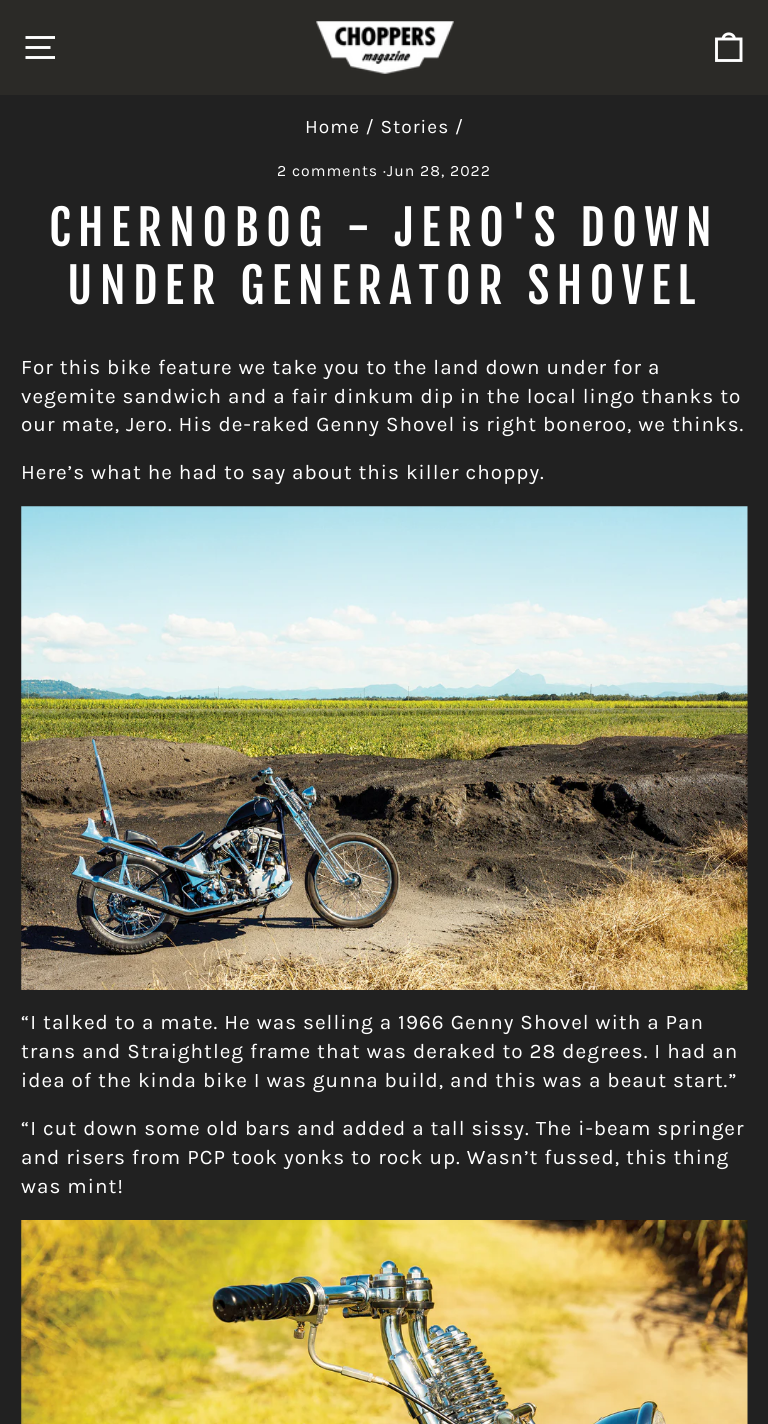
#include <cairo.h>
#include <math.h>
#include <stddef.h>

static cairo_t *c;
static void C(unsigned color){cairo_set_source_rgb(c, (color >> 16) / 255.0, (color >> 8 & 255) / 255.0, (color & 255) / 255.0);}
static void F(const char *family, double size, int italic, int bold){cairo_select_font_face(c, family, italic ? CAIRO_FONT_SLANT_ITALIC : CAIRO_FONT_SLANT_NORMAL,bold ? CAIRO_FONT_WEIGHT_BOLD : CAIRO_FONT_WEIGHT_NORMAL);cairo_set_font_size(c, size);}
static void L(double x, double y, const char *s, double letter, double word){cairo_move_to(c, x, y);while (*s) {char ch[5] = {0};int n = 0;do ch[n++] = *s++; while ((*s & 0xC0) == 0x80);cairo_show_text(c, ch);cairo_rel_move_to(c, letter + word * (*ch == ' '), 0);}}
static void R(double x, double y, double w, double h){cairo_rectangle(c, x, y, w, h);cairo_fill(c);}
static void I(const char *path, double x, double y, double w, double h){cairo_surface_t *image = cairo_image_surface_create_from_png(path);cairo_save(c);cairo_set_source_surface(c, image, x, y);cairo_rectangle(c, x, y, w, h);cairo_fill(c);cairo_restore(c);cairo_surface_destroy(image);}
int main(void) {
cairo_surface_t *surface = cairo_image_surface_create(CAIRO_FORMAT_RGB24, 768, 1424);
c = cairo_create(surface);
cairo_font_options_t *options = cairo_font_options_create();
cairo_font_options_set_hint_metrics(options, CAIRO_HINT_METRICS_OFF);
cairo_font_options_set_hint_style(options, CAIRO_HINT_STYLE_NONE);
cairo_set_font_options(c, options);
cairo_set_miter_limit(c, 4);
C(0x212121);
cairo_paint(c);
C(0x2b2a27);
R(0,0,768,95);
cairo_new_path(c);
cairo_move_to(c,25.5,37.5);
cairo_line_to(c,55,37.5);
cairo_move_to(c,25.5,47.5);
cairo_line_to(c,50.5,47.5);
cairo_move_to(c,25.5,57.5);
cairo_line_to(c,55,57.5);
C(0xffffff);
cairo_set_line_width(c,2.9);
cairo_stroke(c);
I("1.png",316,21,138,53);
cairo_new_path(c);
cairo_move_to(c,716.5,39);
cairo_line_to(c,741,39);
cairo_line_to(c,741,60.5);
cairo_line_to(c,716.5,60.5);
cairo_close_path(c);
cairo_move_to(c,723,39.5);
cairo_curve_to(c,723,32,734.5,32,734.5,39.5);
cairo_stroke(c);
F("Karla",19.1,0,0);
L(305,133,"Home / Stories /",1.03,0);
F("Karla",15.75,0,0);
L(277,176,"2 comments ·Jun 28, 2022",1.03,0);
F("Fjalla One",47.75,0,0);
L(49,246,"CHERNOBOG - JERO'S DOWN",7.2,0);
L(67,304,"UNDER GENERATOR SHOVEL",7.2,0);
F("Karla",20.7,0,0);
L(21,374,"For this bike feature we take you to the land down under for a",1.03,0);
L(21,403,"vegemite sandwich and a fair dinkum dip in the local lingo thanks to",1.03,0);
L(21,431,"our mate, Jero. His de-raked Genny Shovel is right boneroo, we thinks.",1.03,0);
L(21,479,"Here’s what he had to say about this killer choppy.",1.03,0);
I("2.png",21,506,727,484);
L(21,1029,"“I talked to a mate. He was selling a 1966 Genny Shovel with a Pan",1.03,0);
L(21,1058,"trans and Straightleg frame that was deraked to 28 degrees. I had an",1.03,0);
L(21,1087,"idea of the kinda bike I was gunna build, and this was a beaut start.”",1.03,0);
L(21,1135,"“I cut down some old bars and added a tall sissy. The i-beam springer",1.03,0);
L(21,1164,"and risers from PCP took yonks to rock up. Wasn’t fussed, this thing",1.03,0);
L(21,1193,"was mint!",1.03,0);
I("3.png",21,1220,727,204);
cairo_surface_write_to_png(surface, "o.png");
cairo_font_options_destroy(options);
cairo_destroy(c);
cairo_surface_destroy(surface);
return 0;
}
